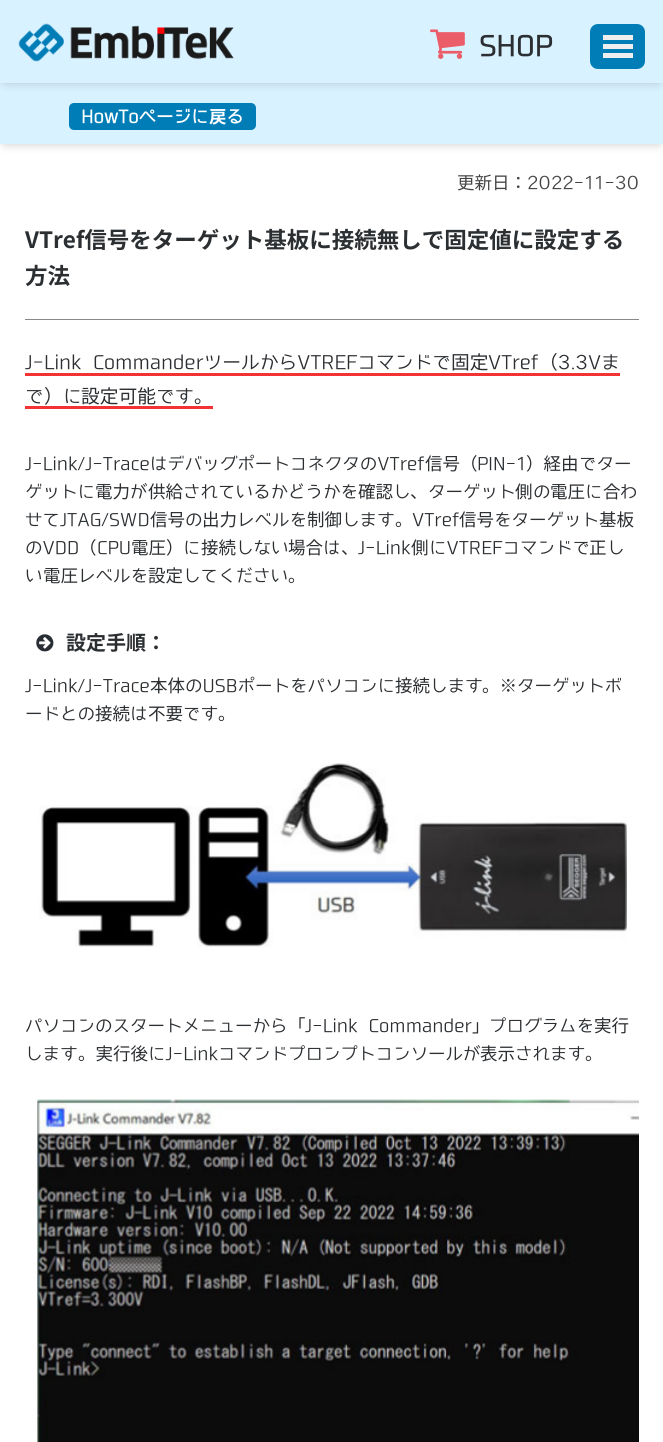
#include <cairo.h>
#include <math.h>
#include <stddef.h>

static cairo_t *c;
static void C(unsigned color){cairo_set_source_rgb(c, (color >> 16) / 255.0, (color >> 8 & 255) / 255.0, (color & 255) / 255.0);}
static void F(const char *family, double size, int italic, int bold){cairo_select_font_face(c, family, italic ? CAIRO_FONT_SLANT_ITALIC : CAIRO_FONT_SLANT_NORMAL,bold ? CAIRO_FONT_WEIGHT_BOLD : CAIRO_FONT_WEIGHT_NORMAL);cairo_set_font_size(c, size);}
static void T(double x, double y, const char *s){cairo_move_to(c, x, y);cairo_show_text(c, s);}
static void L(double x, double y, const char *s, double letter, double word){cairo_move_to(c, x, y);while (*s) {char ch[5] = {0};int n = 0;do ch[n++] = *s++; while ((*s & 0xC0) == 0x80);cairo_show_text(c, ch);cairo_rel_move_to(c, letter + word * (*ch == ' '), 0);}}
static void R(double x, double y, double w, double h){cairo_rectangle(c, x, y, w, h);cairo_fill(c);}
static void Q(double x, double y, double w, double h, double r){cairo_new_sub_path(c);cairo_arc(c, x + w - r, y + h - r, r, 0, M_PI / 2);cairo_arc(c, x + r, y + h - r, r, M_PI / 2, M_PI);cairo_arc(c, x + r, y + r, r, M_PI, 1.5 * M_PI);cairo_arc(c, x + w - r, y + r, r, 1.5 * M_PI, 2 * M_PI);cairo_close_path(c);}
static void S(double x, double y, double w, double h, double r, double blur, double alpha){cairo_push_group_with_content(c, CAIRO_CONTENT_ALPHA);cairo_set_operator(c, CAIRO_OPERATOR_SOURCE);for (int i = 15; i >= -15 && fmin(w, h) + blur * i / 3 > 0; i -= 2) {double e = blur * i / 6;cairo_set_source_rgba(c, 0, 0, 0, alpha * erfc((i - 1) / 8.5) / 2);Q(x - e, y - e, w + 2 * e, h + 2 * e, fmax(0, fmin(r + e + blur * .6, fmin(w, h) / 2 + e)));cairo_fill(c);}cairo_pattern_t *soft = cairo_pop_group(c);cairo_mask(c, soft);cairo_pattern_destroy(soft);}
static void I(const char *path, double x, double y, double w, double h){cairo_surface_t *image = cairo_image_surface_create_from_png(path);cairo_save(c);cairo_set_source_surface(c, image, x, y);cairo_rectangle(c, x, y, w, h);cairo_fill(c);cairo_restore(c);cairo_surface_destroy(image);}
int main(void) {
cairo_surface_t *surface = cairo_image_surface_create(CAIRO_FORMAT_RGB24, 663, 1442);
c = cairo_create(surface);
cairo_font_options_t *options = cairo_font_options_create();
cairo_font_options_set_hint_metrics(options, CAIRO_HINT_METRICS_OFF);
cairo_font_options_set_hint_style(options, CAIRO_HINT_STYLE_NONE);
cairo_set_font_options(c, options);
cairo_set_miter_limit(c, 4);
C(0xffffff);
cairo_paint(c);
C(0x000000);
S(5,90,654,53,0,5.5,.25);
C(0xd9f2ff);
R(0,83,663,61);
C(0x000000);
S(5,9,654,72,0,5.5,.25);
C(0xd9f2ff);
R(0,0,663,83);
I("1.png",18,23,216,39);
I("2.png",430,29,35,30);
F("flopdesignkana",27.5,0,1);
C(0x2c2f32);
T(479,56,"SHOP");
C(0x007db7);
Q(590,24,55,45,8);
cairo_fill(c);
C(0xeeeeee);
R(603,35,30,5);
R(603,44,30,5);
R(603,53,30,5);
C(0x007db7);
Q(69,103,187,27,5);
cairo_fill(c);
F("flopdesignkana",17.5,0,1);
C(0xffffff);
T(81,123,"HowToページに");
F("Noto Sans JP",17.5,0,1);
T(209,123,"戻");
F("flopdesignkana",17.5,0,1);
T(226,123,"る");
F("Noto Sans JP",17.5,0,0);
C(0x444444);
T(457,189,"更新日：");
F("flopdesignkana",17.5,0,0);
T(527,189,"2022-11-30");
F("Noto Sans JP",22.5,0,1);
C(0x2c2f32);
T(25,248,"VTref信号をターゲット基板に接続無しで固定値に設定する");
T(25,284,"方法");
C(0x888888);
R(25,319,614,1);
F("flopdesignkana",18.75,0,0);
C(0x2c2f32);
L(25,369,"J-Link CommanderツールからVTREFコマンドで",0,4);
C(0xf33333);
R(25,373,595,3);
F("Noto Sans JP",18.75,0,0);
C(0x2c2f32);
T(451,369,"固定");
F("flopdesignkana",18.75,0,0);
T(488,369,"VTref");
F("Noto Sans JP",18.75,0,0);
T(539,369,"（");
F("flopdesignkana",18.75,0,0);
T(558,369,"3.3Vま");
T(25,403,"で");
F("Noto Sans JP",18.75,0,0);
T(44,403,"）");
F("flopdesignkana",18.75,0,0);
T(63,403,"に");
F("Noto Sans JP",18.75,0,0);
T(81,403,"設定可能");
F("flopdesignkana",18.75,0,0);
T(156,403,"です");
F("Noto Sans JP",18.75,0,0);
T(194,403,"。");
C(0xf33333);
R(25,406,188,3);
F("flopdesignkana",17.5,0,0);
C(0x2c2f32);
T(25,470,"J-Link/J-TraceはデバッグポートコネクタのVTref");
F("Noto Sans JP",17.5,0,0);
T(425,470,"信号（");
F("flopdesignkana",17.5,0,0);
T(477,470,"PIN-1");
F("Noto Sans JP",17.5,0,0);
T(526,470,"）経由");
F("flopdesignkana",17.5,0,0);
T(579,470,"でター");
T(25,498,"ゲットに");
F("Noto Sans JP",17.5,0,0);
T(95,498,"電力");
F("flopdesignkana",17.5,0,0);
T(130,498,"が");
F("Noto Sans JP",17.5,0,0);
T(148,498,"供給");
F("flopdesignkana",17.5,0,0);
T(183,498,"されているかどうかを");
F("Noto Sans JP",17.5,0,0);
T(358,498,"確認");
F("flopdesignkana",17.5,0,0);
T(393,498,"し");
F("Noto Sans JP",17.5,0,0);
T(410,498,"、");
F("flopdesignkana",17.5,0,0);
T(428,498,"ターゲット");
F("Noto Sans JP",17.5,0,0);
T(515,498,"側");
F("flopdesignkana",17.5,0,0);
T(533,498,"の");
F("Noto Sans JP",17.5,0,0);
T(550,498,"電圧");
F("flopdesignkana",17.5,0,0);
T(585,498,"に");
F("Noto Sans JP",17.5,0,0);
T(603,498,"合");
F("flopdesignkana",17.5,0,0);
T(620,498,"わ");
T(25,526,"せてJTAG/SWD");
F("Noto Sans JP",17.5,0,0);
T(150,526,"信号");
F("flopdesignkana",17.5,0,0);
T(185,526,"の");
F("Noto Sans JP",17.5,0,0);
T(202,526,"出力");
F("flopdesignkana",17.5,0,0);
T(237,526,"レベルを");
F("Noto Sans JP",17.5,0,0);
T(307,526,"制御");
F("flopdesignkana",17.5,0,0);
T(342,526,"します");
F("Noto Sans JP",17.5,0,0);
T(395,526,"。");
F("flopdesignkana",17.5,0,0);
T(412,526,"VTref");
F("Noto Sans JP",17.5,0,0);
T(459,526,"信号");
F("flopdesignkana",17.5,0,0);
T(494,526,"をターゲット");
F("Noto Sans JP",17.5,0,0);
T(599,526,"基板");
F("flopdesignkana",17.5,0,0);
T(25,554,"のVDD");
F("Noto Sans JP",17.5,0,0);
T(79,554,"（");
F("flopdesignkana",17.5,0,0);
T(97,554,"CPU");
F("Noto Sans JP",17.5,0,0);
T(131,554,"電圧）");
F("flopdesignkana",17.5,0,0);
T(183,554,"に");
F("Noto Sans JP",17.5,0,0);
T(201,554,"接続");
F("flopdesignkana",17.5,0,0);
T(236,554,"しない");
F("Noto Sans JP",17.5,0,0);
T(288,554,"場合");
F("flopdesignkana",17.5,0,0);
T(323,554,"は");
F("Noto Sans JP",17.5,0,0);
T(341,554,"、");
F("flopdesignkana",17.5,0,0);
T(358,554,"J-Link");
F("Noto Sans JP",17.5,0,0);
T(411,554,"側");
F("flopdesignkana",17.5,0,0);
T(429,554,"にVTREFコマンドで");
F("Noto Sans JP",17.5,0,0);
T(589,554,"正");
F("flopdesignkana",17.5,0,0);
T(607,554,"し");
T(25,582,"い");
F("Noto Sans JP",17.5,0,0);
T(43,582,"電圧");
F("flopdesignkana",17.5,0,0);
T(78,582,"レベルを");
F("Noto Sans JP",17.5,0,0);
T(148,582,"設定");
F("flopdesignkana",17.5,0,0);
T(183,582,"してください");
F("Noto Sans JP",17.5,0,0);
T(288,582,"。");
I("3.png",36,634,18,18);
F("Noto Sans JP",20,0,1);
T(66,650,"設定手順：");
F("flopdesignkana",17.5,0,0);
T(25,692,"J-Link/J-Trace");
F("Noto Sans JP",17.5,0,0);
T(150,692,"本体");
F("flopdesignkana",17.5,0,0);
T(185,692,"のUSBポートをパソコンに");
F("Noto Sans JP",17.5,0,0);
T(395,692,"接続");
F("flopdesignkana",17.5,0,0);
T(430,692,"します");
F("Noto Sans JP",17.5,0,0);
T(482,692,"。※");
F("flopdesignkana",17.5,0,0);
T(517,692,"ターゲットボ");
T(25,720,"ードとの");
F("Noto Sans JP",17.5,0,0);
T(95,720,"接続");
F("flopdesignkana",17.5,0,0);
T(130,720,"は");
F("Noto Sans JP",17.5,0,0);
T(148,720,"不要");
F("flopdesignkana",17.5,0,0);
T(183,720,"です");
F("Noto Sans JP",17.5,0,0);
T(218,720,"。");
I("4.png",39,763,588,184);
F("flopdesignkana",17.5,0,0);
T(25,1032,"パソコンのスタートメニューから");
F("Noto Sans JP",17.5,0,0);
T(288,1032,"「");
F("flopdesignkana",17.5,0,0);
L(305,1032,"J-Link Commander",0,4);
F("Noto Sans JP",17.5,0,0);
T(472,1032,"」");
F("flopdesignkana",17.5,0,0);
T(489,1032,"プログラムを");
F("Noto Sans JP",17.5,0,0);
T(594,1032,"実行");
F("flopdesignkana",17.5,0,0);
T(25,1060,"します");
F("Noto Sans JP",17.5,0,0);
T(78,1060,"。実行後");
F("flopdesignkana",17.5,0,0);
T(148,1060,"にJ-Linkコマンドプロンプトコンソールが");
F("Noto Sans JP",17.5,0,0);
T(480,1060,"表示");
F("flopdesignkana",17.5,0,0);
T(515,1060,"されます");
F("Noto Sans JP",17.5,0,0);
T(585,1060,"。");
I("5.png",37,1099,602,343);
cairo_surface_write_to_png(surface, "o.png");
cairo_font_options_destroy(options);
cairo_destroy(c);
cairo_surface_destroy(surface);
return 0;
}
